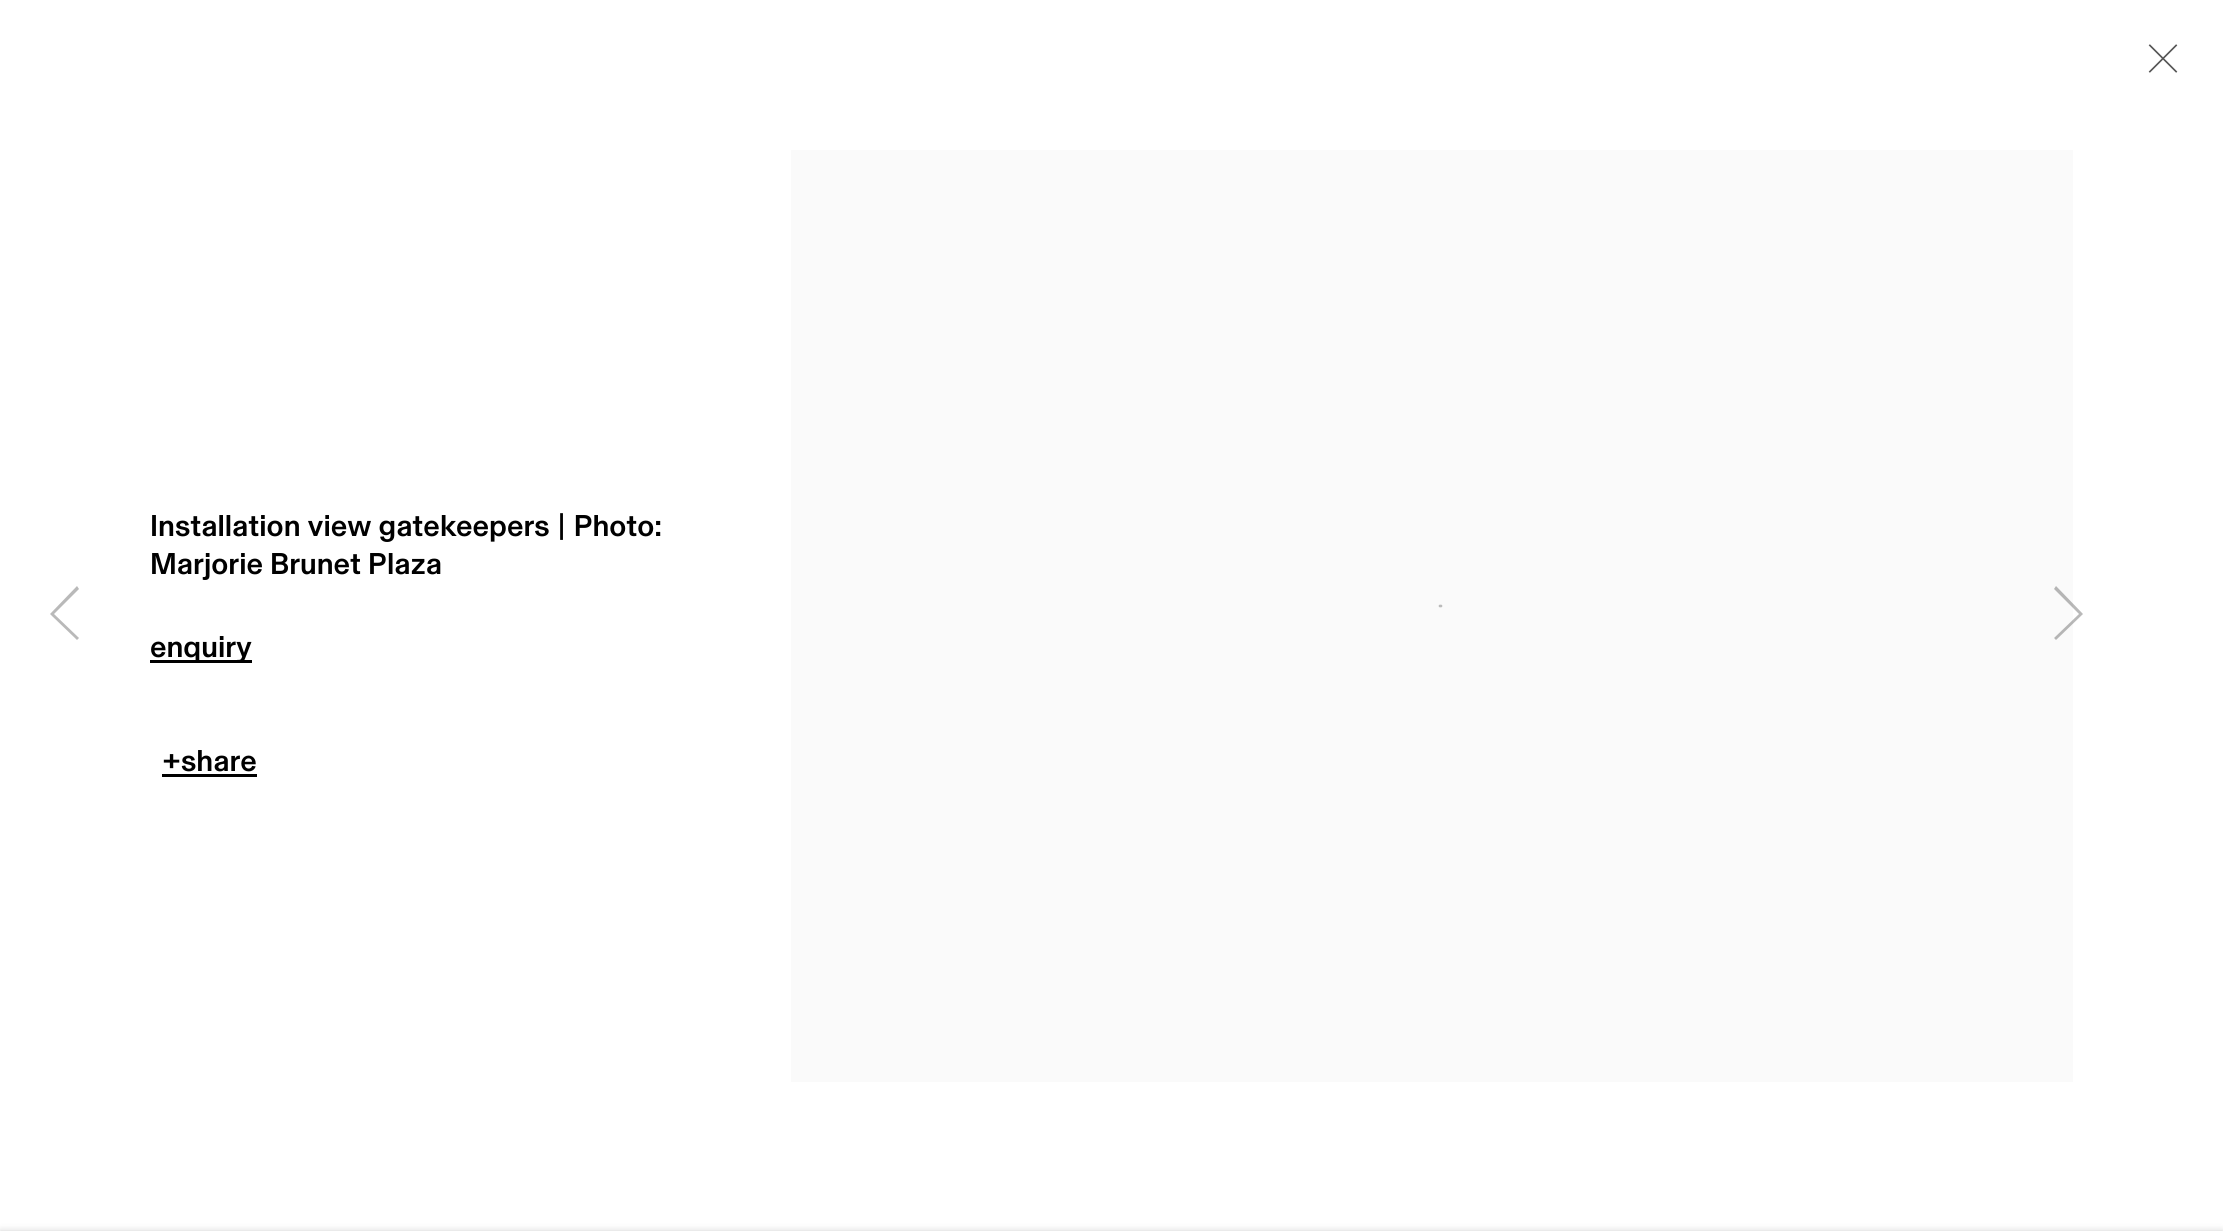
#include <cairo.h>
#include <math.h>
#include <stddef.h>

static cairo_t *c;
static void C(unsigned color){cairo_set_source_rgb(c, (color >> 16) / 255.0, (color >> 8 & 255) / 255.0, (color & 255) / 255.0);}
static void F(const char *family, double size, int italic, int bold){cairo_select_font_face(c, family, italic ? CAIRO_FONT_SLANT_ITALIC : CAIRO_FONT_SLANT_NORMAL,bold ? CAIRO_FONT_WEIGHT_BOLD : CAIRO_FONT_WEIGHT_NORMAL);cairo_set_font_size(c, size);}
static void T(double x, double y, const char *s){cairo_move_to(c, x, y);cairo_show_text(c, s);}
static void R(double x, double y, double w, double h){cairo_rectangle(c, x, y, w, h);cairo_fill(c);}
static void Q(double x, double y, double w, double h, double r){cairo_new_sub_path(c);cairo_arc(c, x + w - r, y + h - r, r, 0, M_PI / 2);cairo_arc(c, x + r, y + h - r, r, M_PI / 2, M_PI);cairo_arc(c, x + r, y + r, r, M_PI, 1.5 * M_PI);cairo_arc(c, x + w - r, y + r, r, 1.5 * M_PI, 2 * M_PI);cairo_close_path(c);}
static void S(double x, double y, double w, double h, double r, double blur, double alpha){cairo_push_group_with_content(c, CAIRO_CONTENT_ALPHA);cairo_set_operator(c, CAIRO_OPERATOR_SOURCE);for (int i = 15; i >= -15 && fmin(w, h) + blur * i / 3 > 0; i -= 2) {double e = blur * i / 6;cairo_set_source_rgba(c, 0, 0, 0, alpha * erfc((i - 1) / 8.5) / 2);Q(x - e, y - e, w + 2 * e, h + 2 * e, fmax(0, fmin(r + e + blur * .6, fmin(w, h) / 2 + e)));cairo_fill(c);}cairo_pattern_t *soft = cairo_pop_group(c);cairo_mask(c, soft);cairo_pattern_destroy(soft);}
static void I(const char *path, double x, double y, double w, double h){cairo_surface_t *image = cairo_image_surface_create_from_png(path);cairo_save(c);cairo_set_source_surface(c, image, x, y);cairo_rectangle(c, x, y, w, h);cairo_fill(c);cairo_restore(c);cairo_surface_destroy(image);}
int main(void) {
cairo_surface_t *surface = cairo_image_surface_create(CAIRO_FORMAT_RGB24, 2223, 1231);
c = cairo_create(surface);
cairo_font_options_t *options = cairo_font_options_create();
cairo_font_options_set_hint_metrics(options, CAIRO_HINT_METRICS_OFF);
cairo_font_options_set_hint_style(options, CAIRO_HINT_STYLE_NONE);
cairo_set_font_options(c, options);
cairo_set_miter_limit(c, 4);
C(0xffffff);
cairo_paint(c);
I("1.png",2148,44,30,29);
F("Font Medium",30.5,0,0);
C(0x000000);
T(150,536,"Installation view gatekeepers | Photo:");
T(150,574,"Marjorie Brunet Plaza");
R(150,660,102,3);
T(150,657,"enquiry");
R(162,774,95,3);
T(162,771,"+share");
C(0xfafafa);
R(791,150,1282,932);
cairo_new_path(c);
cairo_move_to(c,1440,606);
cairo_line_to(c,1441,606);
C(0xbbbbbb);
cairo_set_line_width(c,2.7);
cairo_set_line_cap(c,CAIRO_LINE_CAP_ROUND);
cairo_stroke(c);
C(0xb9b9b9);
cairo_new_path(c);
cairo_move_to(c,52,616);
cairo_line_to(c,77,640);
cairo_line_to(c,79,638);
cairo_line_to(c,54,614);
cairo_line_to(c,79,589);
cairo_line_to(c,77,586);
cairo_line_to(c,50,614);
cairo_close_path(c);
cairo_fill(c);
cairo_set_source_rgba(c,0.082,0.082,0.082,0.3);
cairo_new_path(c);
cairo_move_to(c,2083,614);
cairo_line_to(c,2056,586);
cairo_line_to(c,2054,589);
cairo_line_to(c,2079,614);
cairo_line_to(c,2054,638);
cairo_line_to(c,2056,640);
cairo_close_path(c);
cairo_fill(c);
C(0x000000);
S(0,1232,2223,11,0,4,.23);
cairo_surface_write_to_png(surface, "o.png");
cairo_font_options_destroy(options);
cairo_destroy(c);
cairo_surface_destroy(surface);
return 0;
}
